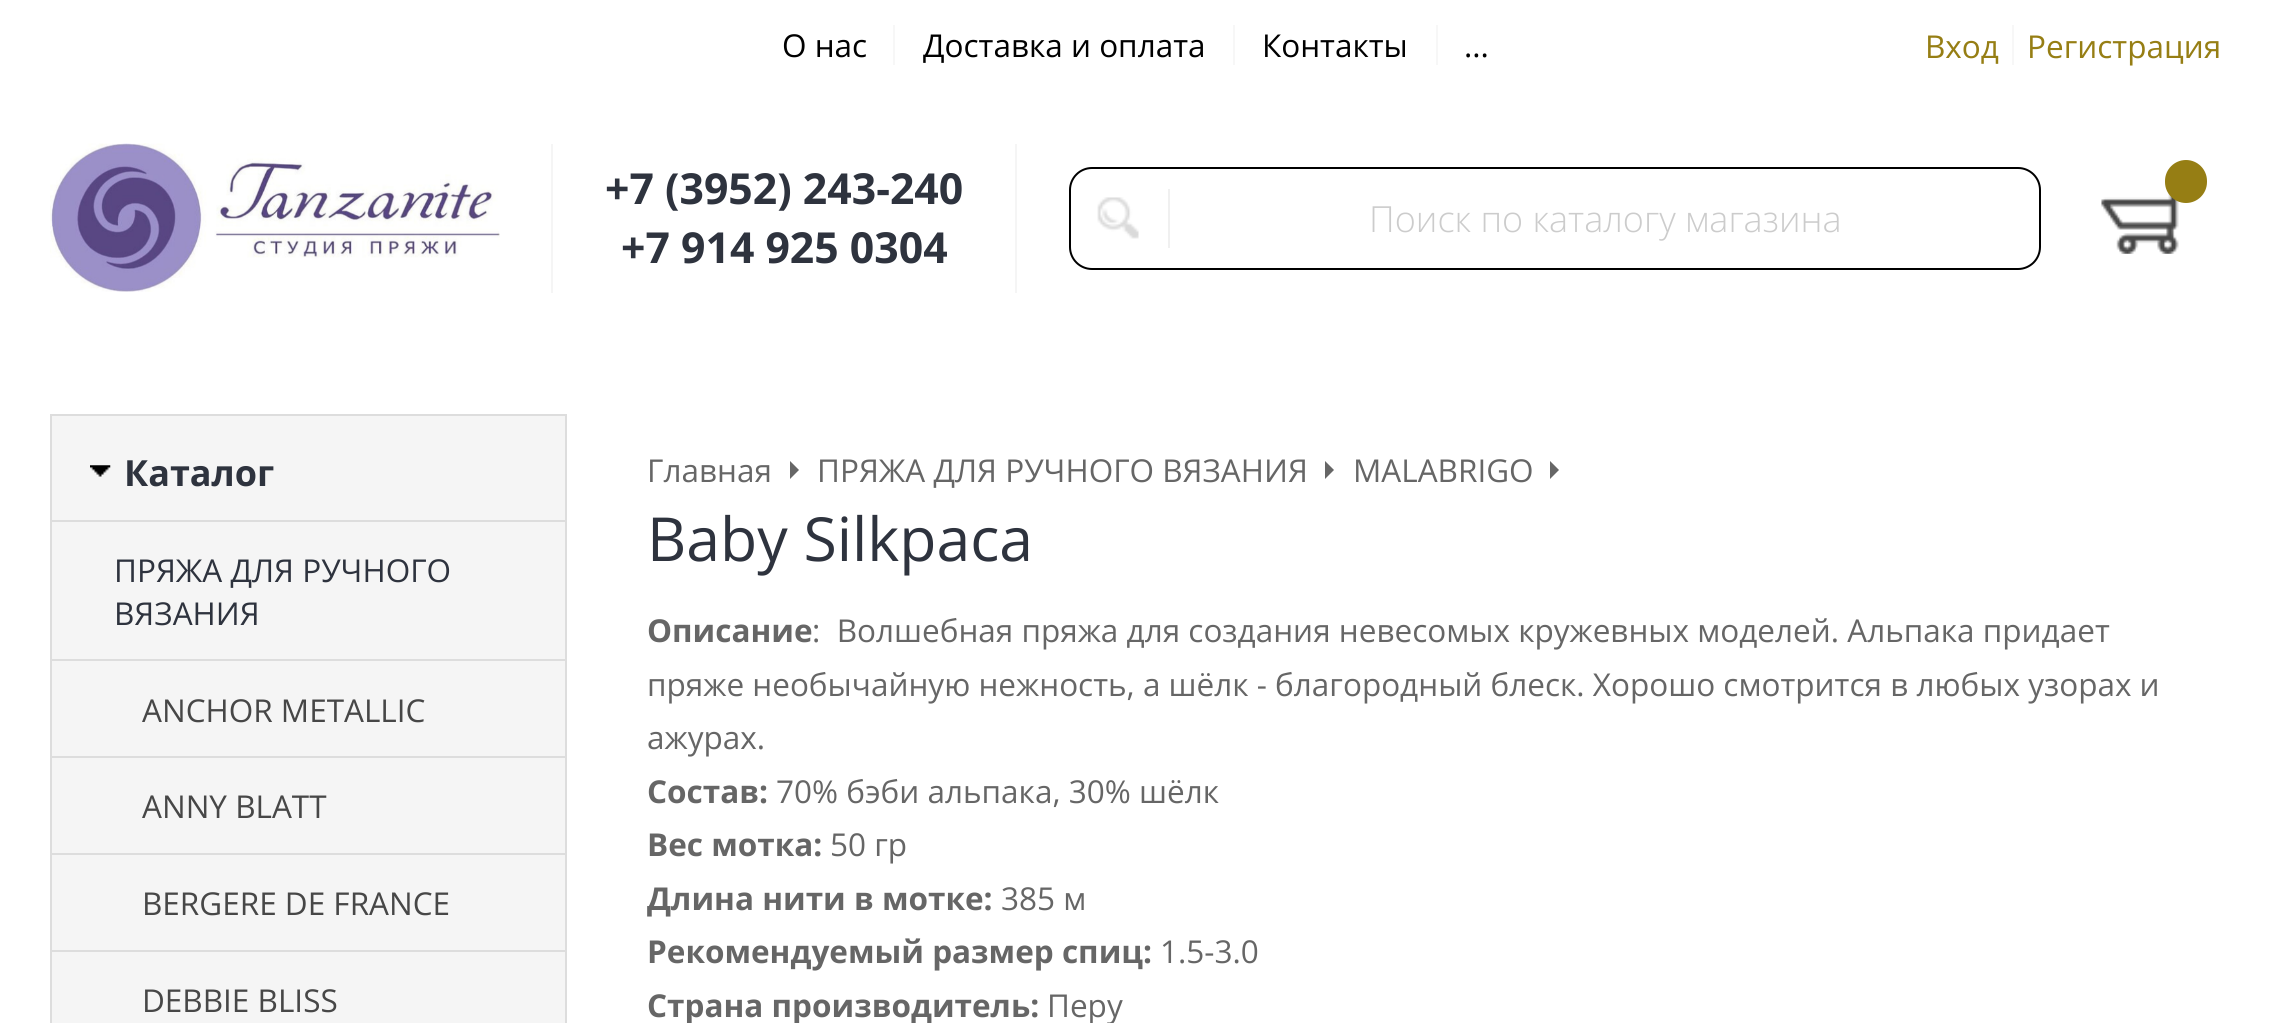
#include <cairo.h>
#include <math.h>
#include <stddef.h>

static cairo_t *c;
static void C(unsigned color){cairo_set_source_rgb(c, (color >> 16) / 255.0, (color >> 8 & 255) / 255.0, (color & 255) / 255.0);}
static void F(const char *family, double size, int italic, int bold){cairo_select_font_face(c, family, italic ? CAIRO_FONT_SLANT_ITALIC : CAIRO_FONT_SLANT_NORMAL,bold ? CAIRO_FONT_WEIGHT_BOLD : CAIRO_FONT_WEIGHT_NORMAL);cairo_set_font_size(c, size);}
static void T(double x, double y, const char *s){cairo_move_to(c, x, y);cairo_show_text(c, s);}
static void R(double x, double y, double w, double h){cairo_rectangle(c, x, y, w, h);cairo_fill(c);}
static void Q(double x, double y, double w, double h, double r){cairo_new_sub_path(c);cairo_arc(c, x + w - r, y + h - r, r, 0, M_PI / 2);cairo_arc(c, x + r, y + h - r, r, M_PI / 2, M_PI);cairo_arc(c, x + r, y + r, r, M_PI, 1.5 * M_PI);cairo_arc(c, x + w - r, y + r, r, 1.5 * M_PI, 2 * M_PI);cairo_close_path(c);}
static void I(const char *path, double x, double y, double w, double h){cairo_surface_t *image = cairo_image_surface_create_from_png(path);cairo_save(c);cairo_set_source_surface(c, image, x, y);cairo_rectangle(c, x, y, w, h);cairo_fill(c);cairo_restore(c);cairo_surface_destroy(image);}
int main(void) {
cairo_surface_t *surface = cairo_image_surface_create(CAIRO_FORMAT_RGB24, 2269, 1023);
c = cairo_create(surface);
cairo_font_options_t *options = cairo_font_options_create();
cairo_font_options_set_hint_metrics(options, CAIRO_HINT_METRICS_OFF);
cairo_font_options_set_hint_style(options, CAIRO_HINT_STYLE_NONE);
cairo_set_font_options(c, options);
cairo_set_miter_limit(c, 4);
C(0xffffff);
cairo_paint(c);
F("Open Sans",31.5,0,0);
C(0x000000);
T(782,57,"О нас");
C(0xf7f7f7);
R(893,25,2,40);
C(0x000000);
T(923,57,"Доставка и оплата");
C(0xf7f7f7);
R(1233,25,2,40);
C(0x000000);
T(1262,57,"Контакты");
C(0xf7f7f7);
R(1436,25,2,40);
C(0x000000);
T(1464,57,"...");
C(0x967e14);
T(1925,58,"Вход");
C(0xf7f7f7);
R(2012,25,2,40);
C(0x967e14);
T(2027,58,"Регистрация");
I("1.png",50,143,450,149);
C(0xf5f5f5);
R(551,144,2,149);
F("Open Sans",42.75,0,1);
C(0x2e333e);
T(605,204,"+7 (3952) 243-240");
T(621,263,"+7 914 925 0304");
C(0xf5f5f5);
R(1015,144,2,149);
Q(1070,168,970,101,22);
C(0x000000);
cairo_stroke(c);
I("2.png",1097,197,42,42);
C(0xf0f0f0);
R(1168,189,2,59);
F("Open Sans Light",36,0,0);
C(0xcccccc);
T(1369,232,"Поиск по каталогу магазина");
I("3.png",2101,192,78,62);
C(0x967e14);
Q(2165,160,42,43,21);
cairo_fill(c);
C(0xf5f5f5);
cairo_rectangle(c,51,415,515,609);
cairo_fill_preserve(c);
C(0xdddddd);
cairo_stroke(c);
I("4.png",90,465,21,12);
F("Open Sans",36,0,1);
C(0x2e333e);
T(124,486,"Каталог");
C(0xdddddd);
R(52,520,513,2);
F("Open Sans",31.5,0,0);
C(0x2e333e);
T(114,582,"ПРЯЖА ДЛЯ РУЧНОГО");
T(114,625,"ВЯЗАНИЯ");
C(0xdddddd);
R(52,659,513,2);
C(0x474747);
T(142,722,"ANCHOR METALLIC");
C(0xdddddd);
R(52,756,513,2);
C(0x474747);
T(142,818,"ANNY BLATT");
C(0xdddddd);
R(52,853,513,2);
C(0x474747);
T(142,915,"BERGERE DE FRANCE");
C(0xdddddd);
R(52,950,513,2);
C(0x474747);
T(142,1012,"DEBBIE BLISS");
C(0x666666);
T(647,482,"Главная");
cairo_new_path(c);
cairo_move_to(c,790,479);
cairo_line_to(c,790,461);
cairo_line_to(c,799,470);
cairo_close_path(c);
cairo_fill(c);
T(817,482,"ПРЯЖА ДЛЯ РУЧНОГО ВЯЗАНИЯ");
cairo_new_path(c);
cairo_move_to(c,1325,479);
cairo_line_to(c,1325,461);
cairo_line_to(c,1334,470);
cairo_close_path(c);
cairo_fill(c);
T(1353,482,"MALABRIGO");
cairo_new_path(c);
cairo_move_to(c,1550,479);
cairo_line_to(c,1550,461);
cairo_line_to(c,1559,470);
cairo_close_path(c);
cairo_fill(c);
F("Open Sans",60.75,0,0);
C(0x2e333e);
T(647,561,"Baby Silkpaca");
F("Open Sans",31.5,0,1);
C(0x666666);
T(647,642,"Описание");
F("Open Sans",31.5,0,0);
T(812,642,":  Волшебная пряжа для создания невесомых кружевных моделей. Альпака придает");
T(647,696,"пряже необычайную нежность, а шёлк - благородный блеск. Хорошо смотрится в любых узорах и");
T(647,749,"ажурах.");
F("Open Sans",31.5,0,1);
T(647,803,"Состав:");
F("Open Sans",31.5,0,0);
T(776,803,"70% бэби альпака, 30% шёлк");
F("Open Sans",31.5,0,1);
T(647,856,"Вес мотка:");
F("Open Sans",31.5,0,0);
T(830,856,"50 гр");
F("Open Sans",31.5,0,1);
T(647,910,"Длина нити в мотке:");
F("Open Sans",31.5,0,0);
T(1001,910,"385 м");
F("Open Sans",31.5,0,1);
T(647,963,"Рекомендуемый размер спиц:");
F("Open Sans",31.5,0,0);
T(1160,963,"1.5-3.0");
F("Open Sans",31.5,0,1);
T(647,1017,"Страна производитель:");
F("Open Sans",31.5,0,0);
T(1047,1017,"Перу");
cairo_surface_write_to_png(surface, "o.png");
cairo_font_options_destroy(options);
cairo_destroy(c);
cairo_surface_destroy(surface);
return 0;
}
